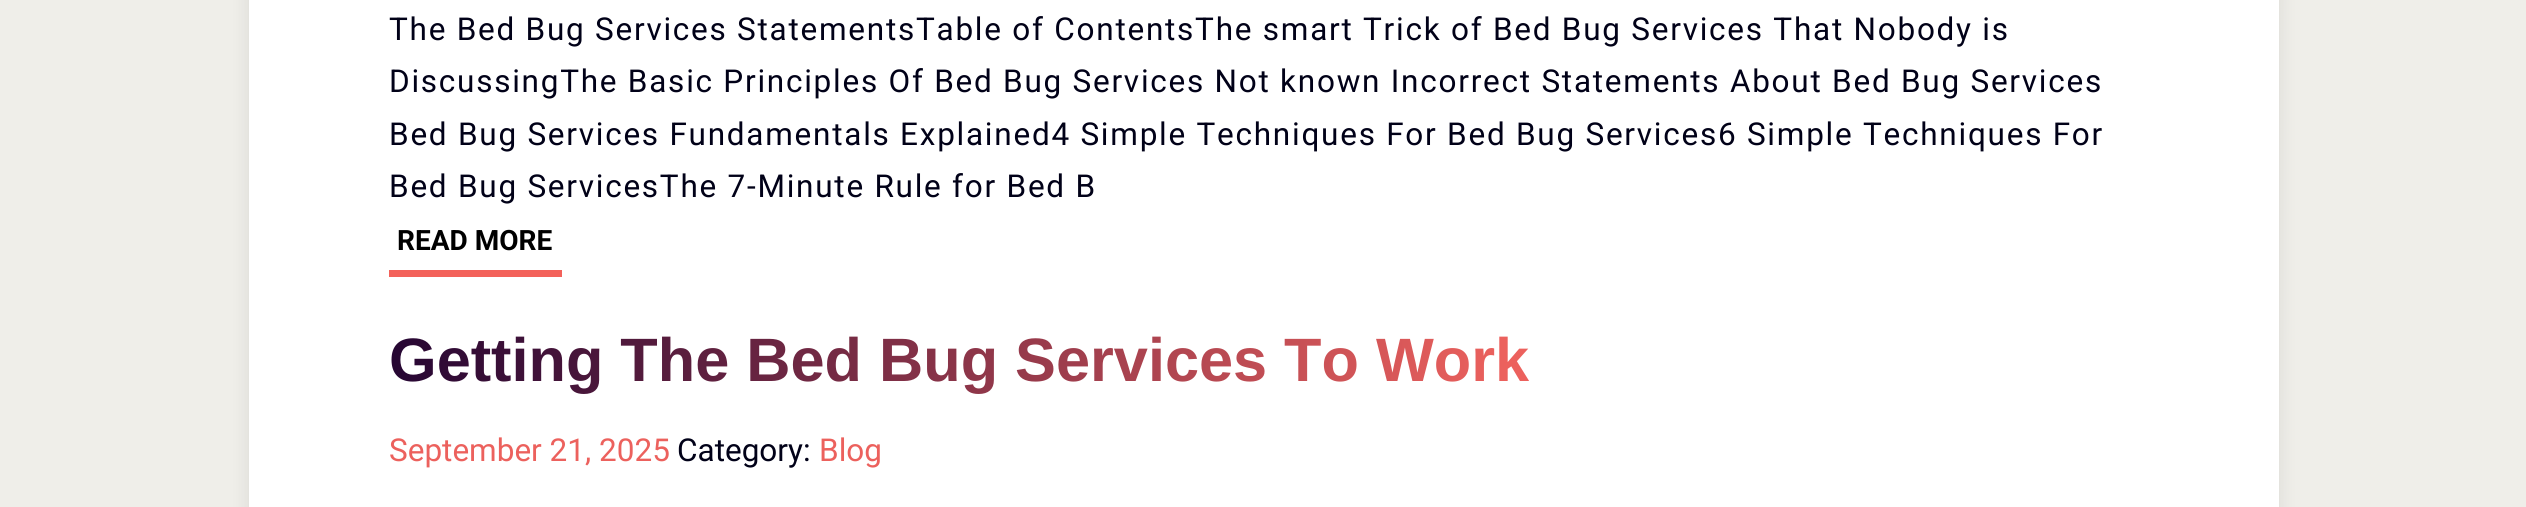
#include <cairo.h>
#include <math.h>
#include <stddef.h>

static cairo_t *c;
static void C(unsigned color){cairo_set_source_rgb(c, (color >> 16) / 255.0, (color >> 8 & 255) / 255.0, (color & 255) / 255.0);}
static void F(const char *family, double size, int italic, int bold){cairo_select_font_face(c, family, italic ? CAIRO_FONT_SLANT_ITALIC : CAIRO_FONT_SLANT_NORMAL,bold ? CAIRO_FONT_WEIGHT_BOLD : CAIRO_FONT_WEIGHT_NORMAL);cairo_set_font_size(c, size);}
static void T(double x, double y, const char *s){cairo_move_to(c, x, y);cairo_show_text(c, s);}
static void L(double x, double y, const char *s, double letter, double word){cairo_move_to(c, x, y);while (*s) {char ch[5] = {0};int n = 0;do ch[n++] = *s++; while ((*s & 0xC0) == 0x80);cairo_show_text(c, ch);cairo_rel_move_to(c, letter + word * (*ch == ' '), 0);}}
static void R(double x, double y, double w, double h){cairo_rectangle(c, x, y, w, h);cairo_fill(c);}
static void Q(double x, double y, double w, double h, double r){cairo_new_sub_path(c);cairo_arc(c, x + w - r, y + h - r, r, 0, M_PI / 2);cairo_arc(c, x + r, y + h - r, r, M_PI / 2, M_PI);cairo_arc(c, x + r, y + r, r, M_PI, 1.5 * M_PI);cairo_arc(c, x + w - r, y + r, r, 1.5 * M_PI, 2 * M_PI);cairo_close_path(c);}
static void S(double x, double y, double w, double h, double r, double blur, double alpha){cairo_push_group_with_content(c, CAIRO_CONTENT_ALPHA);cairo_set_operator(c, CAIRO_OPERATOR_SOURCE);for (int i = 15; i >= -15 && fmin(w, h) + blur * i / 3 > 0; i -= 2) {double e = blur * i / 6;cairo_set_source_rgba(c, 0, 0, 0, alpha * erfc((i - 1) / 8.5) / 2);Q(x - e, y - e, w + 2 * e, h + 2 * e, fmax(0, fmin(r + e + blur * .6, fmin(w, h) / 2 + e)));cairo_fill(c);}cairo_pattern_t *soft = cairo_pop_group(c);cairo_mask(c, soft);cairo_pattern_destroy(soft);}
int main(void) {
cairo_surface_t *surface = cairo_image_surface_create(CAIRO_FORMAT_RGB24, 2526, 507);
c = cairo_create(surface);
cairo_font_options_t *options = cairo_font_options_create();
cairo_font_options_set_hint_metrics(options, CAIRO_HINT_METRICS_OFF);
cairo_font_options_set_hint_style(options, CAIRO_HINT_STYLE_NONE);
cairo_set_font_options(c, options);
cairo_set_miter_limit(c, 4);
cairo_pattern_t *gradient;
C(0xefeee9);
cairo_paint(c);
C(0x000000);
S(249,-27,2030,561,0,9,.1);
C(0xffffff);
R(249,0,2030,507);
F("Roboto",31.5,0,0);
C(0x010118);
L(389,40,"The Bed Bug Services StatementsTable of ContentsThe smart Trick of Bed Bug Services That Nobody is",1.75,0);
L(389,92,"DiscussingThe Basic Principles Of Bed Bug Services Not known Incorrect Statements About Bed Bug Services",1.75,0);
L(389,145,"Bed Bug Services Fundamentals Explained4 Simple Techniques For Bed Bug Services6 Simple Techniques For",1.75,0);
L(389,197,"Bed Bug ServicesThe 7-Minute Rule for Bed B",1.75,0);
C(0xf3615a);
R(389,270,173,7);
F("Roboto",28,0,1);
C(0x000000);
T(397,250,"READ MORE");
F("Liberation Sans",61.25,0,1);
gradient = cairo_pattern_create_linear(389,359,1529,359);
cairo_pattern_add_color_stop_rgba(gradient,0,0.149,0.024,0.2,1);
cairo_pattern_add_color_stop_rgba(gradient,.98,0.925,0.38,0.365,1);
cairo_set_source(c,gradient);
cairo_pattern_destroy(gradient);
T(389,381,"Getting The Bed Bug Services To Work");
F("Roboto",31.5,0,0);
C(0xec615d);
T(389,461,"September 21, 2025");
C(0x010118);
T(677,461,"Category:");
C(0xec615d);
T(819,461,"Blog");
cairo_surface_write_to_png(surface, "o.png");
cairo_font_options_destroy(options);
cairo_destroy(c);
cairo_surface_destroy(surface);
return 0;
}
